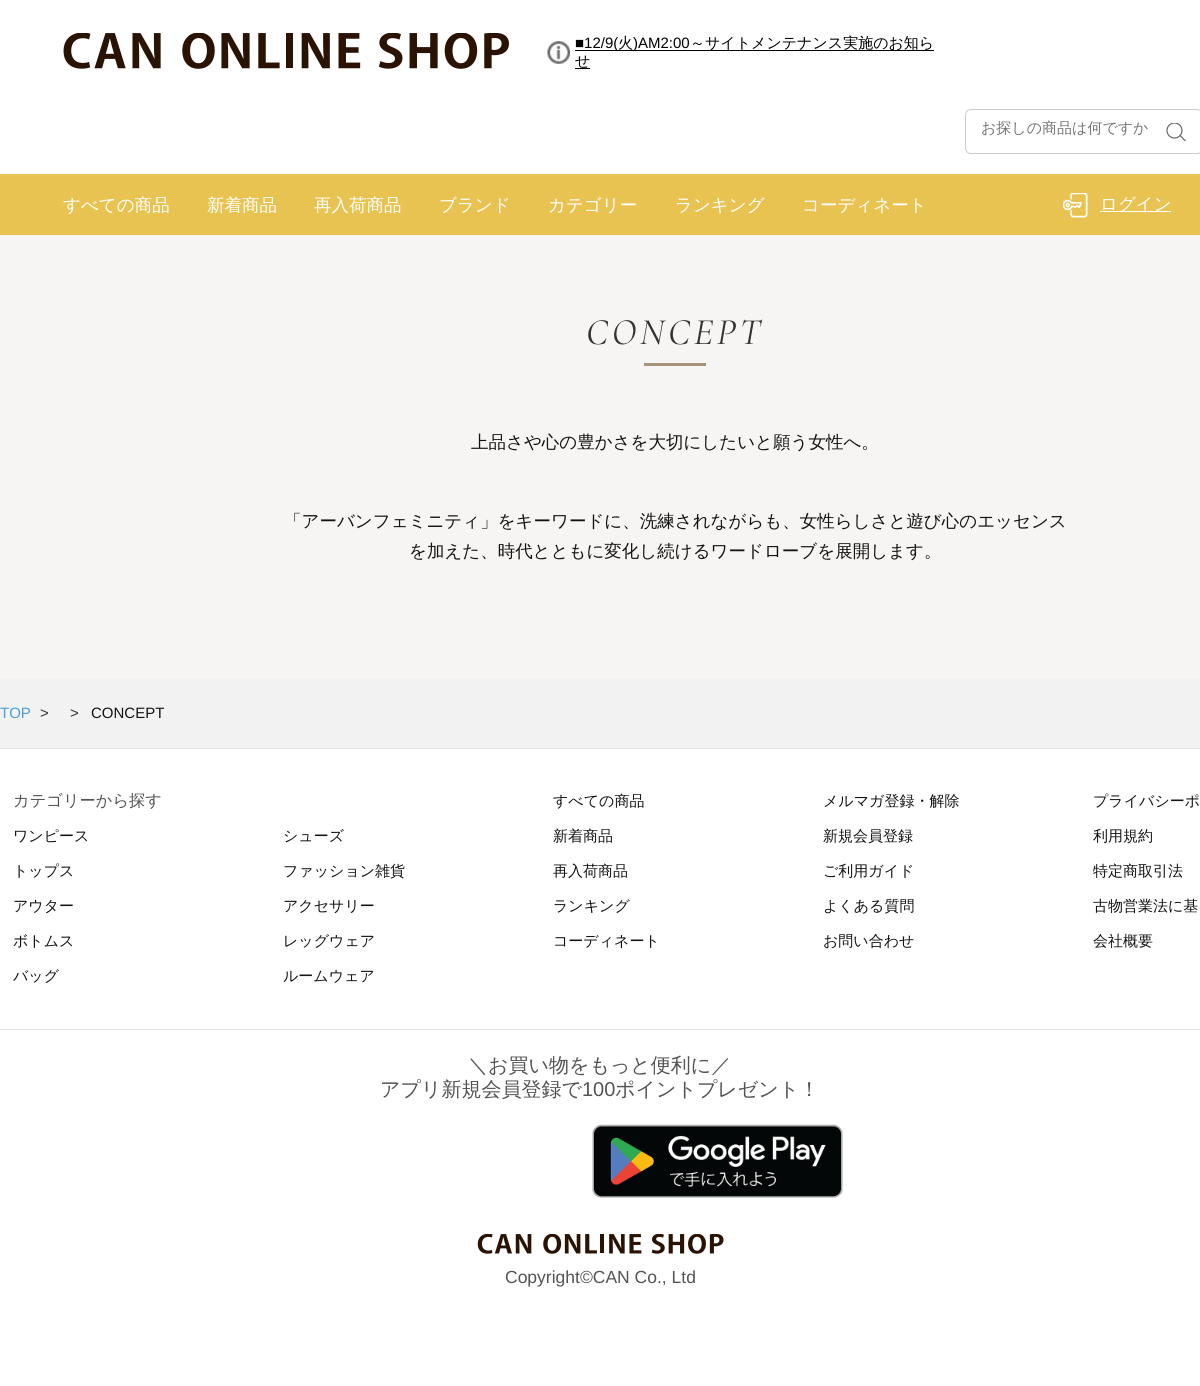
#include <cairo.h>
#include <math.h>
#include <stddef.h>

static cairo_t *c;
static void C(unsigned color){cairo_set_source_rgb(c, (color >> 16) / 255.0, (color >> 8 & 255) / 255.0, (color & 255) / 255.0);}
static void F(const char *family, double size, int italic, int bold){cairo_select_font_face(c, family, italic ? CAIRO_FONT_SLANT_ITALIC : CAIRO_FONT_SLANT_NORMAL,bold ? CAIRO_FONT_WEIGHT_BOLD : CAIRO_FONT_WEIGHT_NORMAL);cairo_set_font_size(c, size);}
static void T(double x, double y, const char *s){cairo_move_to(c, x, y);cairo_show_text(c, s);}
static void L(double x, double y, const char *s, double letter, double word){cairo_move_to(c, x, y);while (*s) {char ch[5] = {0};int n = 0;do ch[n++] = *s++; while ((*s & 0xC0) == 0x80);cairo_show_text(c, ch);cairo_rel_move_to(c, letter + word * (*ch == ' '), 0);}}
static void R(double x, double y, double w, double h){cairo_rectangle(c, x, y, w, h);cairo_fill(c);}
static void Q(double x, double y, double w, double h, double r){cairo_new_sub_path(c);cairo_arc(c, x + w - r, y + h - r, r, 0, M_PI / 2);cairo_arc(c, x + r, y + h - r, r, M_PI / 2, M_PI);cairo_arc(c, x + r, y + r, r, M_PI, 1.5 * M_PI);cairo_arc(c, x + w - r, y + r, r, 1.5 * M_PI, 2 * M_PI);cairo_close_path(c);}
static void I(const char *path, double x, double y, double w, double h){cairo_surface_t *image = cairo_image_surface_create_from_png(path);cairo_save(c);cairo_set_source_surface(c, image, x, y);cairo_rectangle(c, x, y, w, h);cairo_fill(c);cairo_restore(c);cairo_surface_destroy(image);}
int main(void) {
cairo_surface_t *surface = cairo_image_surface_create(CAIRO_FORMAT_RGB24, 1200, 1386);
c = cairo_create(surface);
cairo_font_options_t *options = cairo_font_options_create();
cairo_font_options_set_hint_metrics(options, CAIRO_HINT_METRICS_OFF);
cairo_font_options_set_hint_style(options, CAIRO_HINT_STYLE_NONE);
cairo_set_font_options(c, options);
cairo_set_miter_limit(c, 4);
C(0xffffff);
cairo_paint(c);
I("1.png",63,33,446,36);
I("2.png",547,41,23,23);
C(0x000000);
R(575,50,359,1);
F("Liberation Sans",15,0,0);
T(575,48,"■12/9(");
F("WenQuanYi Zen Hei Medium",15,0,0);
T(618,48,"火");
F("Liberation Sans",15,0,0);
T(633,48,")AM2:00");
F("WenQuanYi Zen Hei Medium",15,0,0);
T(690,48,"～サイトメンテナンス実施のお知ら");
T(575,66,"せ");
R(575,68,15,1);
Q(965.5,109.5,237,44,5.5);
C(0xcccccc);
cairo_set_line_width(c,1);
cairo_stroke(c);
C(0x757575);
T(981,133,"お探しの商品は何ですか");
cairo_save(c);
cairo_rectangle(c,1166,123,20,18);
cairo_clip(c);
cairo_arc(c,1174.5,130.5,7.5,0,2 * M_PI);
C(0x666666);
cairo_set_line_width(c,1.2);
cairo_stroke(c);
cairo_restore(c);
cairo_new_path(c);
cairo_move_to(c,1185.5,141);
cairo_line_to(c,1180,135.5);
C(0x666666);
cairo_set_line_width(c,1.2);
cairo_stroke(c);
C(0xe8c352);
R(0,174,1200,61);
F("WenQuanYi Zen Hei Medium",17.5,0,0);
C(0xffffff);
T(63,211,"すべての商品");
T(207,211,"新着商品");
T(314,211,"再入荷商品");
T(439,211,"ブランド");
T(548,211,"カテゴリー");
T(675,211,"ランキング");
T(802,211,"コーディネート");
I("3.png",1063,193,25,25);
R(1100,211,71,1);
T(1100,210,"ログイン");
C(0xf6f5f3);
R(0,235,1200,444);
F("Cormorant Garamond Light",37.5,1,0);
C(0x333333);
L(586,344,"CONCEPT",3.75,0);
C(0xa6937c);
R(644,363,62,3);
F("WenQuanYi Zen Hei Medium",17.5,0,0);
C(0x131313);
T(471,448,"上品さや心の豊かさを大切にしたいと願う女性へ。");
T(284,527,"「アーバンフェミニティ」をキーワードに、洗練されながらも、女性らしさと遊び心のエッセンス");
T(409,557,"を加えた、時代とともに変化し続けるワードローブを展開します。");
C(0xf2f2f2);
R(0,679,1200,69);
F("Liberation Sans",15,0,0);
C(0x4c9ed9);
T(0,718,"TOP");
C(0x333333);
T(40,718,">");
T(70,718,">");
C(0x131313);
T(91,718,"CONCEPT");
C(0xe6e6e6);
R(0,748,1200,1);
R(0,1029,1200,1);
F("WenQuanYi Zen Hei Medium",16.25,0,0);
C(0x535353);
T(13,806,"カテゴリーから探す");
F("WenQuanYi Zen Hei Medium",15,0,0);
C(0x131313);
T(553,806,"すべての商品");
T(553,841,"新着商品");
T(553,876,"再入荷商品");
T(553,911,"ランキング");
T(553,946,"コーディネート");
T(13,841,"ワンピース");
T(13,876,"トップス");
T(13,911,"アウター");
T(13,946,"ボトムス");
T(13,981,"バッグ");
T(283,841,"シューズ");
T(283,876,"ファッション雑貨");
T(283,911,"アクセサリー");
T(283,946,"レッグウェア");
T(283,981,"ルームウェア");
T(823,806,"メルマガ登録・解除");
T(823,841,"新規会員登録");
T(823,876,"ご利用ガイド");
T(823,911,"よくある質問");
T(823,946,"お問い合わせ");
T(1093,806,"プライバシーポ");
T(1093,841,"利用規約");
T(1093,876,"特定商取引法");
T(1093,911,"古物営業法に基");
T(1093,946,"会社概要");
F("WenQuanYi Zen Hei Medium",20,0,0);
C(0x535353);
T(468,1072,"＼お買い物をもっと便利に／");
T(380,1096,"アプリ新規会員登録で");
F("Liberation Sans",20,0,0);
T(582,1096,"100");
F("WenQuanYi Zen Hei Medium",20,0,0);
T(615,1096,"ポイントプレゼント！");
I("4.png",592,1124,251,74);
I("5.png",477,1234,247,20);
F("Liberation Sans",17.5,0,0);
T(505,1283,"Copyright©CAN Co., Ltd");
cairo_surface_write_to_png(surface, "o.png");
cairo_font_options_destroy(options);
cairo_destroy(c);
cairo_surface_destroy(surface);
return 0;
}
